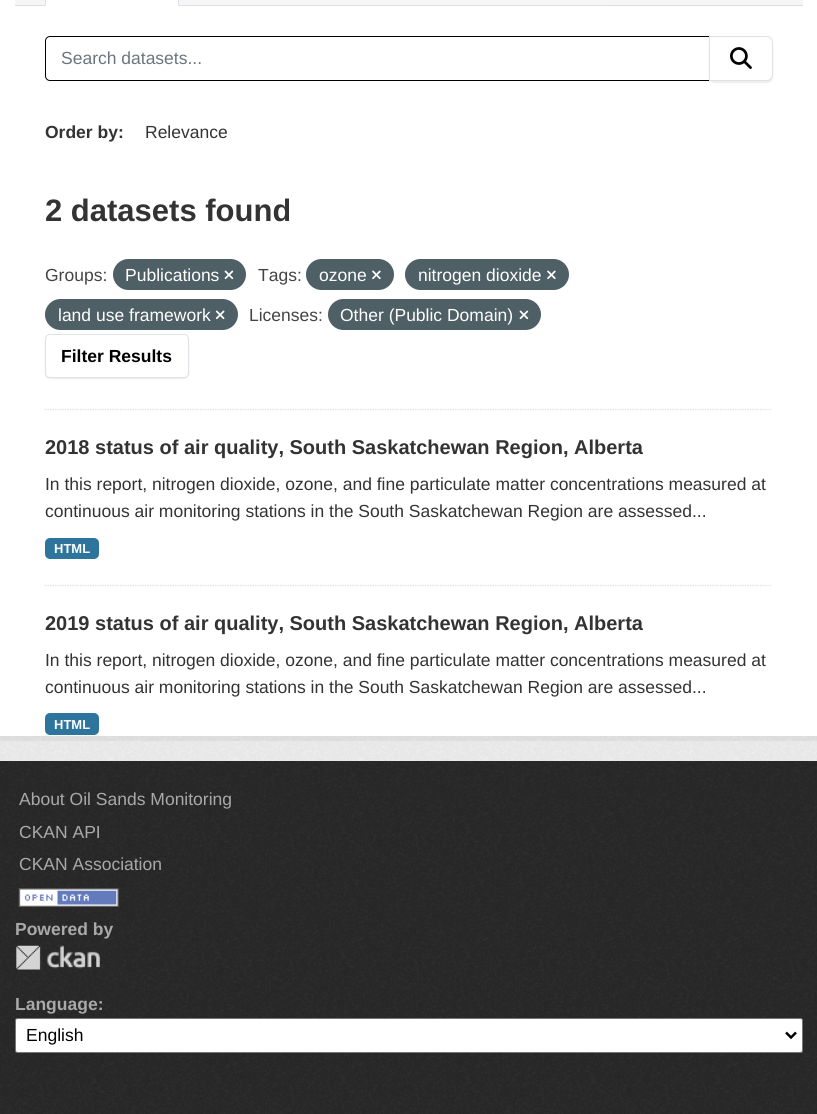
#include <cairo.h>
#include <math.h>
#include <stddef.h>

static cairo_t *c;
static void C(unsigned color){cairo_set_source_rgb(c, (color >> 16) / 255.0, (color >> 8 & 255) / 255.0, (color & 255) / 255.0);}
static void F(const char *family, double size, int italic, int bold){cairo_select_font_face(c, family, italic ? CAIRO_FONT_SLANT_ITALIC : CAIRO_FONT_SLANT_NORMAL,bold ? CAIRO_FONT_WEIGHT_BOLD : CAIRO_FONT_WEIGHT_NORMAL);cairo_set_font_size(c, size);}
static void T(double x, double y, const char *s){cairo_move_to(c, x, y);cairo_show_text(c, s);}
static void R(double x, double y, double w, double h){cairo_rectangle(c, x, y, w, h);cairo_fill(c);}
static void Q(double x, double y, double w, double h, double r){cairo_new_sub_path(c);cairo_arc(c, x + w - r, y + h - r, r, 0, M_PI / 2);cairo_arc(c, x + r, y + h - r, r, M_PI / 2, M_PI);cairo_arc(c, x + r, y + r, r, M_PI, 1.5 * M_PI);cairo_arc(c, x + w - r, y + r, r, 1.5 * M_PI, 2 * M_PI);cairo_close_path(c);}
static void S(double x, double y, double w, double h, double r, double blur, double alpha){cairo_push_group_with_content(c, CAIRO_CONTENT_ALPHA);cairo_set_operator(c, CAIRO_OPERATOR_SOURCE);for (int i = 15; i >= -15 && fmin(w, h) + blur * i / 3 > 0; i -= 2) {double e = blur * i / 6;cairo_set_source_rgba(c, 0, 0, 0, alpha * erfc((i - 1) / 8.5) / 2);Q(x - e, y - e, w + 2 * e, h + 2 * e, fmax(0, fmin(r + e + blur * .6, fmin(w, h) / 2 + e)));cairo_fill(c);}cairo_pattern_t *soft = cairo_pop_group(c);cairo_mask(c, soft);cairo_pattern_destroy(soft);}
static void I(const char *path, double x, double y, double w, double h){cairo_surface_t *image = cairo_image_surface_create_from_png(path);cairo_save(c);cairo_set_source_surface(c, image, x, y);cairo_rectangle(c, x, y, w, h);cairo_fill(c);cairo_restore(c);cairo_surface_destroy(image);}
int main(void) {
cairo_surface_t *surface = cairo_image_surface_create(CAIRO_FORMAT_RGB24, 817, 1114);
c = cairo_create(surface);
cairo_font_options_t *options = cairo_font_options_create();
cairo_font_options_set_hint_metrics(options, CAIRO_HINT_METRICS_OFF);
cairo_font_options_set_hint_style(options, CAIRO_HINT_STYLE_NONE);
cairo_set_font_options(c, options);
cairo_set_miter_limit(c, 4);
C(0x282828);
cairo_paint(c);
C(0xeeeeee);
R(0,736,817,25);
I("1.png",0,736,817,25);
cairo_rectangle(c,-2.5,-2.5,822,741);
cairo_set_source_rgba(c,0,0,0,0.05);
cairo_set_line_width(c,5);
cairo_stroke(c);
C(0xffffff);
R(0,0,817,736);
C(0xf6f6f6);
R(15,0,788,5);
C(0xdddddd);
R(15,5,788,1);
C(0xdee2e6);
R(179,5,426,1);
C(0xffffff);
R(45,0,134,6);
C(0xdee2e6);
cairo_new_path(c);
cairo_move_to(c,179,6);
cairo_line_to(c,178,5);
cairo_line_to(c,178,-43);
cairo_line_to(c,177,-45);
cairo_line_to(c,178,-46);
cairo_line_to(c,179,-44);
cairo_close_path(c);
cairo_fill(c);
cairo_new_path(c);
cairo_move_to(c,45,-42);
cairo_line_to(c,45,6);
cairo_line_to(c,46,5);
cairo_line_to(c,46,-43);
cairo_line_to(c,47,-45);
cairo_line_to(c,46,-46);
cairo_curve_to(c,46,-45,45,-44,45,-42);
cairo_close_path(c);
cairo_fill(c);
cairo_new_path(c);
cairo_move_to(c,45,409.5);
cairo_line_to(c,772.5,409.5);
C(0xdddddd);
cairo_set_line_width(c,1.2);
cairo_set_dash(c,(double[]){1.25,1.25},2,0);
cairo_stroke(c);
cairo_new_path(c);
cairo_move_to(c,50,36.5);
cairo_line_to(c,709.5,36.5);
cairo_line_to(c,709.5,80.5);
cairo_line_to(c,50,80.5);
cairo_curve_to(c,47.5,80.5,45.5,78.5,45.5,76);
cairo_line_to(c,45.5,41);
cairo_curve_to(c,45.5,38.5,47.5,36.5,50,36.5);
cairo_close_path(c);
C(0x000000);
cairo_set_line_width(c,1);
cairo_set_dash(c,NULL,0,0);
cairo_stroke(c);
F("Liberation Sans",17.5,0,0);
C(0x6c757d);
T(61,64,"Search datasets...");
C(0x000000);
S(709,38,64,45,6,.5,.07);
C(0xffffff);
cairo_new_path(c);
cairo_move_to(c,709.5,36.5);
cairo_line_to(c,767,36.5);
cairo_curve_to(c,770,36.5,772.5,39,772.5,42);
cairo_line_to(c,772.5,75);
cairo_curve_to(c,772.5,78,770,80.5,767,80.5);
cairo_line_to(c,709.5,80.5);
cairo_close_path(c);
cairo_fill_preserve(c);
C(0xdee2e6);
cairo_stroke(c);
I("2.png",730,47,22,22);
F("Liberation Sans",17.5,0,1);
C(0x333333);
T(45,138,"Order by:");
F("Liberation Sans",17.5,0,0);
T(145,138,"Relevance");
F("Liberation Sans",31,0,1);
T(45,221,"2 datasets found");
F("Liberation Sans",17.5,0,0);
C(0x444444);
T(45,281,"Groups:");
C(0x4e5f65);
Q(113,259,133,31,15.5);
cairo_fill(c);
C(0xffffff);
T(125,281,"Publications");
I("3.png",224,270,10,10);
C(0x444444);
T(258,281,"Tags:");
C(0x4e5f65);
Q(306,259,88,31,15.5);
cairo_fill(c);
C(0xffffff);
T(319,281,"ozone");
I("4.png",372,270,9,10);
C(0x4e5f65);
Q(405,259,164,31,15.5);
cairo_fill(c);
C(0xffffff);
T(418,281,"nitrogen dioxide");
I("4.png",547,270,9,10);
C(0x4e5f65);
Q(45,299,193,31,15.5);
cairo_fill(c);
C(0xffffff);
T(58,321,"land use framework");
I("5.png",215,310,10,10);
C(0x444444);
T(249,321,"Licenses:");
C(0x4e5f65);
Q(328,299,213,31,15.5);
cairo_fill(c);
C(0xffffff);
T(340,321,"Other (Public Domain)");
I("3.png",519,310,10,10);
C(0x000000);
S(45,335,144,44,5,.5,.07);
C(0xffffff);
Q(45.5,334.5,143,43,4.5);
cairo_fill_preserve(c);
C(0xdee2e6);
cairo_stroke(c);
F("Liberation Sans",17.5,0,1);
C(0x000000);
T(61,362,"Filter Results");
cairo_new_path(c);
cairo_move_to(c,45,585.5);
cairo_line_to(c,772.5,585.5);
C(0xdddddd);
cairo_set_line_width(c,1.2);
cairo_set_dash(c,(double[]){1.25,1.25},2,0);
cairo_stroke(c);
F("Liberation Sans",20,0,1);
C(0x333333);
T(45,454,"2018 status of air quality, South Saskatchewan Region, Alberta");
F("Liberation Sans",17.5,0,0);
T(45,490,"In this report, nitrogen dioxide, ozone, and fine particulate matter concentrations measured at");
T(45,517,"continuous air monitoring stations in the South Saskatchewan Region are assessed...");
C(0x2e759e);
Q(45,538,54,21,5);
cairo_fill(c);
F("Liberation Sans",13,0,1);
C(0xffffff);
T(54,553,"HTML");
F("Liberation Sans",20,0,1);
C(0x333333);
T(45,630,"2019 status of air quality, South Saskatchewan Region, Alberta");
F("Liberation Sans",17.5,0,0);
T(45,666,"In this report, nitrogen dioxide, ozone, and fine particulate matter concentrations measured at");
T(45,693,"continuous air monitoring stations in the South Saskatchewan Region are assessed...");
C(0x2e759e);
Q(45,713,54,22,5);
cairo_fill(c);
F("Liberation Sans",13,0,1);
C(0xffffff);
T(54,729,"HTML");
I("6.png",0,761,817,353);
F("Liberation Sans",17.5,0,0);
C(0xa9a9a9);
T(19,805,"About Oil Sands Monitoring");
T(19,838,"CKAN API");
T(19,870,"CKAN Association");
I("7.png",18,888,101,19);
F("Liberation Sans",17.5,0,1);
T(15,935,"Powered by");
I("8.png",16,945,84,25);
T(15,1010,"Language:");
C(0xffffff);
Q(15.5,1018.5,787,34,2);
cairo_fill_preserve(c);
C(0x767676);
cairo_set_line_width(c,1);
cairo_set_dash(c,NULL,0,0);
cairo_stroke(c);
cairo_new_path(c);
cairo_move_to(c,786,1032.5);
cairo_line_to(c,791,1037.5);
cairo_line_to(c,796,1032.5);
C(0x000000);
cairo_set_line_width(c,2.5);
cairo_stroke(c);
F("Liberation Sans",17.5,0,0);
T(26,1041,"English");
cairo_surface_write_to_png(surface, "o.png");
cairo_font_options_destroy(options);
cairo_destroy(c);
cairo_surface_destroy(surface);
return 0;
}
